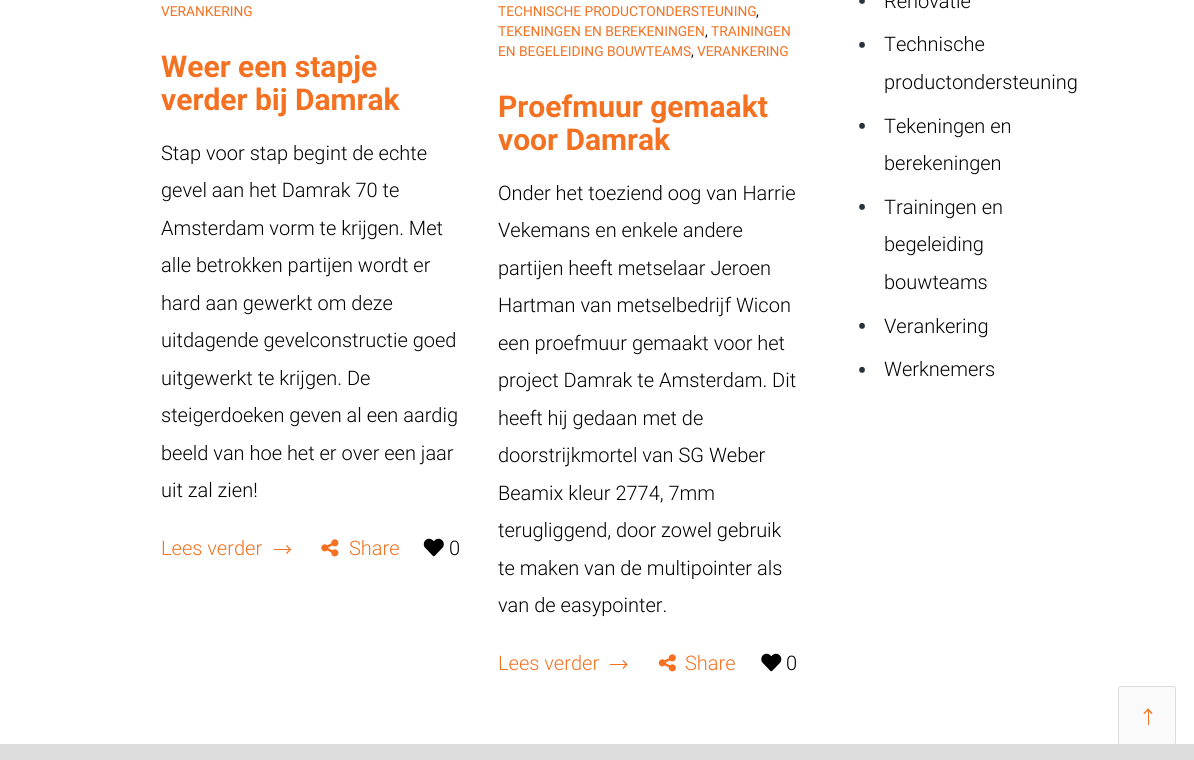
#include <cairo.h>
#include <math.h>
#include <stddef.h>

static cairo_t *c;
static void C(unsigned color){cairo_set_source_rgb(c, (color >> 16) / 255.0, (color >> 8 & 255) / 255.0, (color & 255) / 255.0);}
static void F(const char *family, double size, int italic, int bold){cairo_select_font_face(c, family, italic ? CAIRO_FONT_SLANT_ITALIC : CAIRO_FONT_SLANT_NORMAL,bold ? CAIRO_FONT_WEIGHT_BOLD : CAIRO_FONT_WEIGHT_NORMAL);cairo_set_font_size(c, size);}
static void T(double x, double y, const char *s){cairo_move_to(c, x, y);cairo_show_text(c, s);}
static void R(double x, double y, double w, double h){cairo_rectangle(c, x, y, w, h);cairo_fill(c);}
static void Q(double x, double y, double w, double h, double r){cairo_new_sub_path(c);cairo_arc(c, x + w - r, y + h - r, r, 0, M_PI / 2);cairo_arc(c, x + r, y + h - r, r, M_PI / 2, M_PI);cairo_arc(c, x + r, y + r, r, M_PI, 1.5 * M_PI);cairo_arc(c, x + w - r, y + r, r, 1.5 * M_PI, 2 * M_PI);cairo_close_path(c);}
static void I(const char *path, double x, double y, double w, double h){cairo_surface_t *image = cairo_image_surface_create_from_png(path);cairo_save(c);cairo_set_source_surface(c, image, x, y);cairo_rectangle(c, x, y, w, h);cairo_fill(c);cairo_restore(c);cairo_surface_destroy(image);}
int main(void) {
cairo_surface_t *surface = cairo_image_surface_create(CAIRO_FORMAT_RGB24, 1194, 760);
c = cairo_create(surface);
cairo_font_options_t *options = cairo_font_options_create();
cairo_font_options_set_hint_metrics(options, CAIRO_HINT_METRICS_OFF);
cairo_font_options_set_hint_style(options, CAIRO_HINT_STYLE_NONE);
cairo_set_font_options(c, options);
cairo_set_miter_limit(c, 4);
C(0xffffff);
cairo_paint(c);
F("Roboto",13.75,0,0);
C(0xf37121);
T(161,16,"VERANKERING");
F("Roboto",30,0,1);
T(161,77,"Weer een stapje");
T(161,110,"verder bij Damrak");
F("Roboto Light",20,0,0);
C(0x000000);
T(161,160,"Stap voor stap begint de echte");
T(161,197,"gevel aan het Damrak 70 te");
T(161,235,"Amsterdam vorm te krijgen. Met");
T(161,272,"alle betrokken partijen wordt er");
T(161,310,"hard aan gewerkt om deze");
T(161,347,"uitdagende gevelconstructie goed");
T(161,385,"uitgewerkt te krijgen. De");
T(161,422,"steigerdoeken geven al een aardig");
T(161,460,"beeld van hoe het er over een jaar");
T(161,497,"uit zal zien!");
C(0xf37121);
T(161,555,"Lees verder");
R(274,549,16,1);
cairo_new_path(c);
cairo_move_to(c,286,546);
cairo_line_to(c,287,545);
cairo_line_to(c,291,549.5);
cairo_line_to(c,290.5,550.5);
cairo_close_path(c);
cairo_fill(c);
cairo_new_path(c);
cairo_move_to(c,286,553);
cairo_line_to(c,290.5,548.5);
cairo_line_to(c,291,549.5);
cairo_line_to(c,287,554);
cairo_close_path(c);
cairo_fill(c);
I("1.png",321,539,18,18);
T(349,555,"Share");
I("2.png",423,538,21,19);
C(0x000000);
T(449,555,"0");
F("Roboto",13.75,0,0);
C(0xf37121);
T(498,16,"TECHNISCHE PRODUCTONDERSTEUNING");
C(0x000000);
T(756,16,",");
C(0xf37121);
T(498,36,"TEKENINGEN EN BEREKENINGEN");
C(0x000000);
T(705,36,",");
C(0xf37121);
T(711,36,"TRAININGEN");
T(498,56,"EN BEGELEIDING BOUWTEAMS");
C(0x000000);
T(691,56,",");
C(0xf37121);
T(697,56,"VERANKERING");
F("Roboto",30,0,1);
T(498,117,"Proefmuur gemaakt");
T(498,150,"voor Damrak");
F("Roboto Light",20,0,0);
C(0x000000);
T(498,200,"Onder het toeziend oog van Harrie");
T(498,237,"Vekemans en enkele andere");
T(498,275,"partijen heeft metselaar Jeroen");
T(498,312,"Hartman van metselbedrijf Wicon");
T(498,350,"een proefmuur gemaakt voor het");
T(498,387,"project Damrak te Amsterdam. Dit");
T(498,425,"heeft hij gedaan met de");
T(498,462,"doorstrijkmortel van SG Weber");
T(498,500,"Beamix kleur 2774, 7mm");
T(498,537,"terugliggend, door zowel gebruik");
T(498,575,"te maken van de multipointer als");
T(498,612,"van de easypointer.");
C(0xf37121);
T(498,670,"Lees verder");
R(610,664,16,1);
cairo_new_path(c);
cairo_move_to(c,622.5,661);
cairo_line_to(c,623.5,660);
cairo_line_to(c,627.5,664.5);
cairo_line_to(c,627,665.5);
cairo_close_path(c);
cairo_fill(c);
cairo_new_path(c);
cairo_move_to(c,622.5,668);
cairo_line_to(c,627,663.5);
cairo_line_to(c,627.5,664.5);
cairo_line_to(c,623.5,669);
cairo_close_path(c);
cairo_fill(c);
I("3.png",658,654,18,18);
T(685,670,"Share");
I("4.png",761,653,21,19);
C(0x000000);
T(786,670,"0");
F("Roboto Light",31,0,0);
C(0x27323d);
T(857,12,"•");
F("Roboto Light",20,0,0);
C(0x000000);
T(884,8,"Renovatie");
F("Roboto Light",31,0,0);
C(0x27323d);
T(857,56,"•");
F("Roboto Light",20,0,0);
C(0x000000);
T(884,51,"Technische");
T(884,89,"productondersteuning");
F("Roboto Light",31,0,0);
C(0x27323d);
T(857,137,"•");
F("Roboto Light",20,0,0);
C(0x000000);
T(884,133,"Tekeningen en");
T(884,170,"berekeningen");
F("Roboto Light",31,0,0);
C(0x27323d);
T(857,218,"•");
F("Roboto Light",20,0,0);
C(0x000000);
T(884,214,"Trainingen en");
T(884,251,"begeleiding");
T(884,289,"bouwteams");
F("Roboto Light",31,0,0);
C(0x27323d);
T(857,337,"•");
F("Roboto Light",20,0,0);
C(0x000000);
T(884,333,"Verankering");
F("Roboto Light",31,0,0);
C(0x27323d);
T(857,381,"•");
F("Roboto Light",20,0,0);
C(0x000000);
T(884,376,"Werknemers");
C(0xdddddd);
R(0,744,1194,16);
C(0xfafafa);
Q(1118.5,686.5,57,58,2);
cairo_fill_preserve(c);
C(0xdddddd);
cairo_set_line_width(c,1);
cairo_stroke(c);
C(0xf37121);
R(1148,709,1,16);
cairo_new_path(c);
cairo_move_to(c,1149,709.5);
cairo_line_to(c,1144.5,714);
cairo_line_to(c,1143.5,713);
cairo_line_to(c,1148,708.5);
cairo_close_path(c);
cairo_fill(c);
cairo_new_path(c);
cairo_move_to(c,1152.5,713);
cairo_line_to(c,1151.5,714);
cairo_line_to(c,1147,709.5);
cairo_line_to(c,1148,708.5);
cairo_close_path(c);
cairo_fill(c);
cairo_surface_write_to_png(surface, "o.png");
cairo_font_options_destroy(options);
cairo_destroy(c);
cairo_surface_destroy(surface);
return 0;
}
